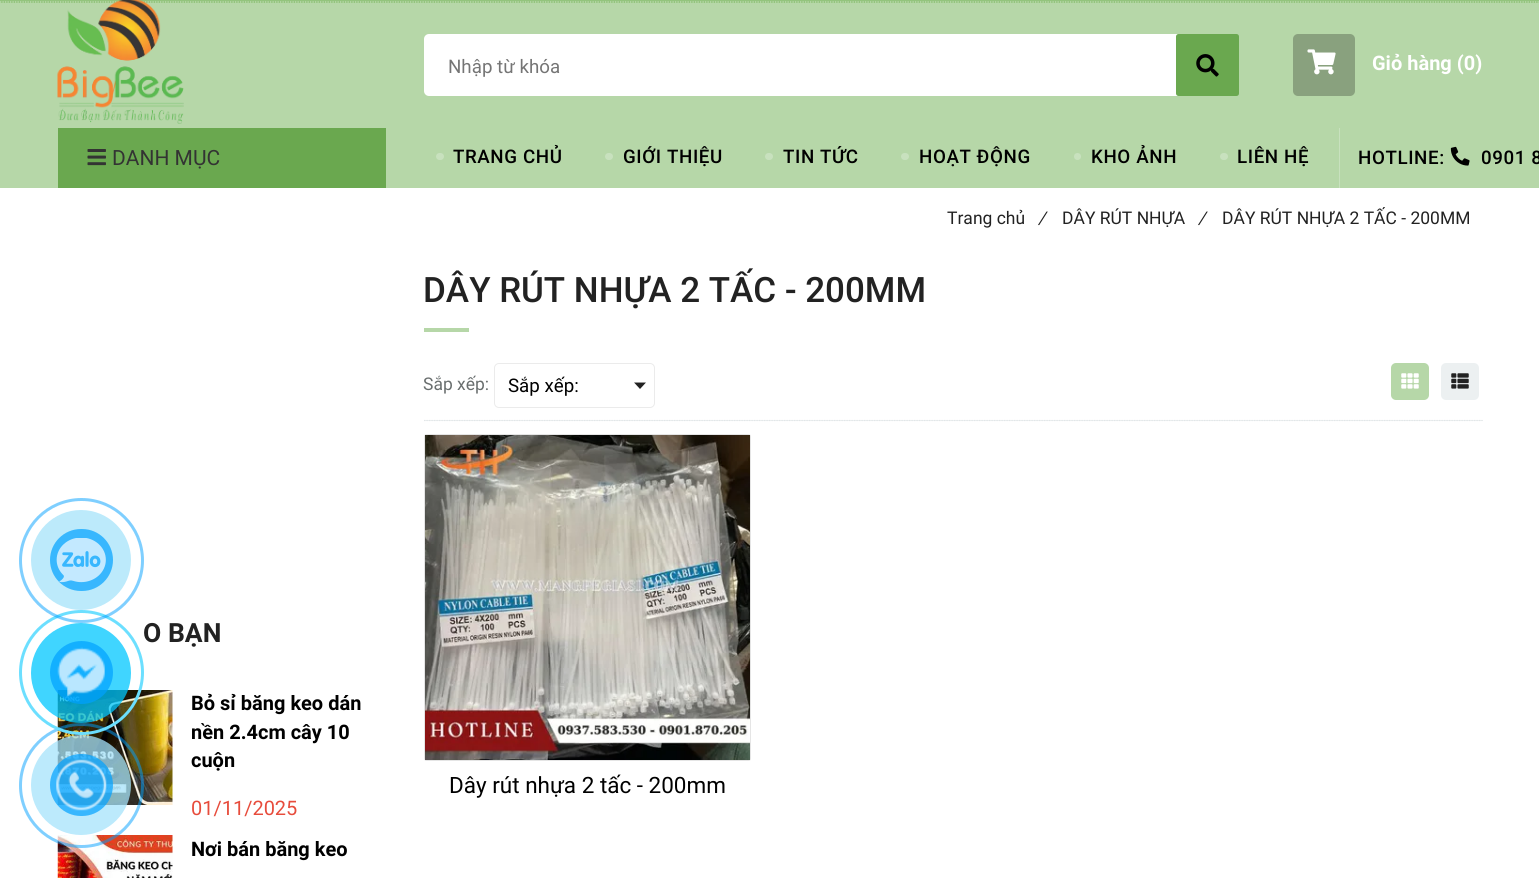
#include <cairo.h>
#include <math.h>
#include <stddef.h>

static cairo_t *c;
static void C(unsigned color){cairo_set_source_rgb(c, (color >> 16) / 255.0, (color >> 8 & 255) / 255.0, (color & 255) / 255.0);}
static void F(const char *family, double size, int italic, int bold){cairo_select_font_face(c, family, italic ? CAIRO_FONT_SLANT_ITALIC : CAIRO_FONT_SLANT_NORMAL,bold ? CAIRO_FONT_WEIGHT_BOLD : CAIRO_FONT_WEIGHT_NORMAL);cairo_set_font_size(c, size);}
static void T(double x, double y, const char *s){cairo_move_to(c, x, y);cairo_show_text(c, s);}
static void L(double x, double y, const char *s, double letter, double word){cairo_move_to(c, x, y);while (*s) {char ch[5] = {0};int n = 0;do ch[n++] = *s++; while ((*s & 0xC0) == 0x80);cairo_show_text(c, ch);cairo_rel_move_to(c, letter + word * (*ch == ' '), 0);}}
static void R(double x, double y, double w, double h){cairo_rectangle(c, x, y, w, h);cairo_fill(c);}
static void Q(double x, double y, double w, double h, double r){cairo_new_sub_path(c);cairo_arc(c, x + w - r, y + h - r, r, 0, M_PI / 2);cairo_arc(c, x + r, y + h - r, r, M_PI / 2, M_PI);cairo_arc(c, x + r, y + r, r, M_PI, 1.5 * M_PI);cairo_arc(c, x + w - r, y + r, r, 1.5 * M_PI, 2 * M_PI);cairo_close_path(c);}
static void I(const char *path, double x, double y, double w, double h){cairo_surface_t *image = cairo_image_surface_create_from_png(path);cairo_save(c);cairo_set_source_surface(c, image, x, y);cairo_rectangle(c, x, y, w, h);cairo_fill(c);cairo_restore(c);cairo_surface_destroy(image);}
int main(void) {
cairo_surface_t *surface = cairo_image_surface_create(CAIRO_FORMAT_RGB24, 1539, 878);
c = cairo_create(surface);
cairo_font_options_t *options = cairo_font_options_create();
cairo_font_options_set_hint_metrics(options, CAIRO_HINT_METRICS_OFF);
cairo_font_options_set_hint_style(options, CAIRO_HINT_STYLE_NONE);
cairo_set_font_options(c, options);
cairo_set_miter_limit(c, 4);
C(0xffffff);
cairo_paint(c);
I("7.png",57,690,116,115);
I("8.png",57,835,116,43);
cairo_arc(c,81.5,785.5,61,0,2 * M_PI);
cairo_set_source_rgba(c,0,0.631,1,0.5);
cairo_set_line_width(c,3);
cairo_stroke(c);
cairo_arc(c,81.5,672.5,61,0,2 * M_PI);
cairo_set_source_rgba(c,0.42,0.875,1,0.99);
cairo_stroke(c);
cairo_arc(c,81.5,560.5,61,0,2 * M_PI);
cairo_set_source_rgba(c,0,0.631,1,0.5);
cairo_stroke(c);
C(0xbceafb);
cairo_arc(c,81,560,50,0,2 * M_PI);
cairo_fill(c);
C(0x38b7fe);
Q(50,529,63,62,31);
cairo_fill(c);
I("1.png",56,538,50,45);
C(0x93c47d);
R(0,0,1539,3);
cairo_new_path(c);
cairo_move_to(c,0,2);
cairo_line_to(c,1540,2);
C(0xc4dfb8);
cairo_set_line_width(c,1.2);
cairo_set_dash(c,(double[]){1.25,1.25},2,0);
cairo_stroke(c);
C(0xb6d7a8);
R(0,3,1539,185);
I("2.png",57,0,127,124);
C(0xffffff);
Q(424,34,815,62,5);
cairo_fill(c);
F("Roboto",18.75,0,0);
C(0x757575);
T(448,73,"Nhập từ khóa");
C(0x6aa84f);
Q(1176,34,63,62,2.5);
cairo_fill(c);
I("3.png",1196,54,23,23);
C(0x89a17e);
Q(1293,34,62,62,5);
cairo_fill(c);
I("4.png",1307,49,29,26);
F("Roboto",20,0,1);
C(0xffffff);
T(1372,70,"Giỏ hàng (0)");
C(0x6aa84f);
R(58,128,328,60);
I("5.png",87,149,19,17);
F("Roboto",21,0,0);
C(0x333333);
T(112,165,"DANH MỤC");
C(0xc8e1be);
Q(436,153,8,7,3.5);
cairo_fill(c);
F("Roboto Medium",18.75,0,0);
C(0x000000);
L(453,163,"TRANG CHỦ",.6,0);
C(0xc8e1be);
Q(605,153,8,7,3.5);
cairo_fill(c);
C(0x000000);
L(623,163,"GIỚI THIỆU",.6,0);
C(0xc8e1be);
Q(765,153,8,7,3.5);
cairo_fill(c);
C(0x000000);
L(783,163,"TIN TỨC",.6,0);
C(0xc8e1be);
Q(901,153,8,7,3.5);
cairo_fill(c);
C(0x000000);
L(919,163,"HOẠT ĐỘNG",.6,0);
C(0xc8e1be);
cairo_new_path(c);
cairo_arc(c,1077.5,156.5,3.5,0,2 * M_PI);
cairo_fill(c);
C(0x000000);
L(1091,163,"KHO ẢNH",.6,0);
C(0xc8e1be);
Q(1220,153,8,7,3.5);
cairo_fill(c);
C(0x000000);
L(1237,163,"LIÊN HỆ",.6,0);
C(0xc8e1be);
R(1339,128,1,60);
C(0x000000);
L(1358,164,"HOTLINE:",.6,0);
I("6.png",1450,146,20,20);
L(1481,164,"0901 8",.6,0);
F("Roboto",17.5,0,0);
C(0x222222);
T(947,224,"Trang chủ");
F("Roboto",17.5,1,0);
T(1038,224,"/");
F("Roboto",17.5,0,0);
T(1062,224,"DÂY RÚT NHỰA");
F("Roboto",17.5,1,0);
T(1198,224,"/");
F("Roboto",17.5,0,0);
T(1222,224,"DÂY RÚT NHỰA 2 TẤC - 200MM");
F("Roboto",26.5,0,1);
T(143,642,"O BẠN");
F("Roboto",20,0,1);
C(0x000000);
T(191,710,"Bỏ sỉ băng keo dán");
T(191,739,"nền 2.4cm cây 10");
T(191,767,"cuộn");
F("Roboto",20,0,0);
C(0xe74c3c);
T(191,815,"01/11/2025");
F("Roboto",20,0,1);
C(0x000000);
T(191,856,"Nơi bán băng keo");
F("Roboto Medium",35,0,0);
C(0x222222);
T(423,302,"DÂY RÚT NHỰA 2 TẤC - 200MM");
C(0xb6d7a8);
R(424,328,45,4);
F("Roboto",17.5,0,0);
C(0x696e6e);
T(423,390,"Sắp xếp:");
Q(494.5,363.5,160,44,4.5);
C(0xebebeb);
cairo_set_line_width(c,1);
cairo_set_dash(c,NULL,0,0);
cairo_stroke(c);
F("Roboto",18.75,0,0);
C(0x000000);
T(508,392,"Sắp xếp:");
C(0x222222);
cairo_new_path(c);
cairo_move_to(c,634,382.5);
cairo_line_to(c,646,382.5);
cairo_line_to(c,640,389);
cairo_close_path(c);
cairo_fill(c);
C(0xb6d7a8);
Q(1391,363,38,37,5);
cairo_fill(c);
I("9.png",1401,373,18,16);
C(0xecf0f1);
Q(1441,363,38,37,5);
cairo_fill(c);
I("10.png",1451,373,18,16);
R(424,420,1059,1);
cairo_new_path(c);
cairo_move_to(c,424,420.5);
cairo_line_to(c,1482.5,420.5);
C(0xe2e6e7);
cairo_set_line_width(c,1.2);
cairo_set_dash(c,(double[]){1.25,1.25},2,0);
cairo_stroke(c);
Q(424.5,434.5,326,326,2);
C(0xe5e5e5);
cairo_set_line_width(c,1);
cairo_set_dash(c,NULL,0,0);
cairo_stroke(c);
I("11.png",425,435,325,325);
F("Roboto",22.5,0,0);
C(0x000000);
T(449,793,"Dây rút nhựa 2 tấc - 200mm");
cairo_set_source_rgba(c,0,0.78,1,0.75);
cairo_new_path(c);
cairo_arc(c,81,673,50,0,2 * M_PI);
cairo_fill(c);
cairo_set_source_rgba(c,0,0.631,1,0.7);
cairo_arc(c,81.5,672.5,31.5,0,2 * M_PI);
cairo_fill(c);
I("12.png",57,647,48,50);
cairo_set_source_rgba(c,0.651,0.89,0.98,0.75);
cairo_arc(c,81,785,50,0,2 * M_PI);
cairo_fill(c);
cairo_set_source_rgba(c,0,0.631,1,0.7);
Q(50,754,63,62,31);
cairo_fill(c);
I("13.png",56,759,51,52);
cairo_surface_write_to_png(surface, "o.png");
cairo_font_options_destroy(options);
cairo_destroy(c);
cairo_surface_destroy(surface);
return 0;
}
